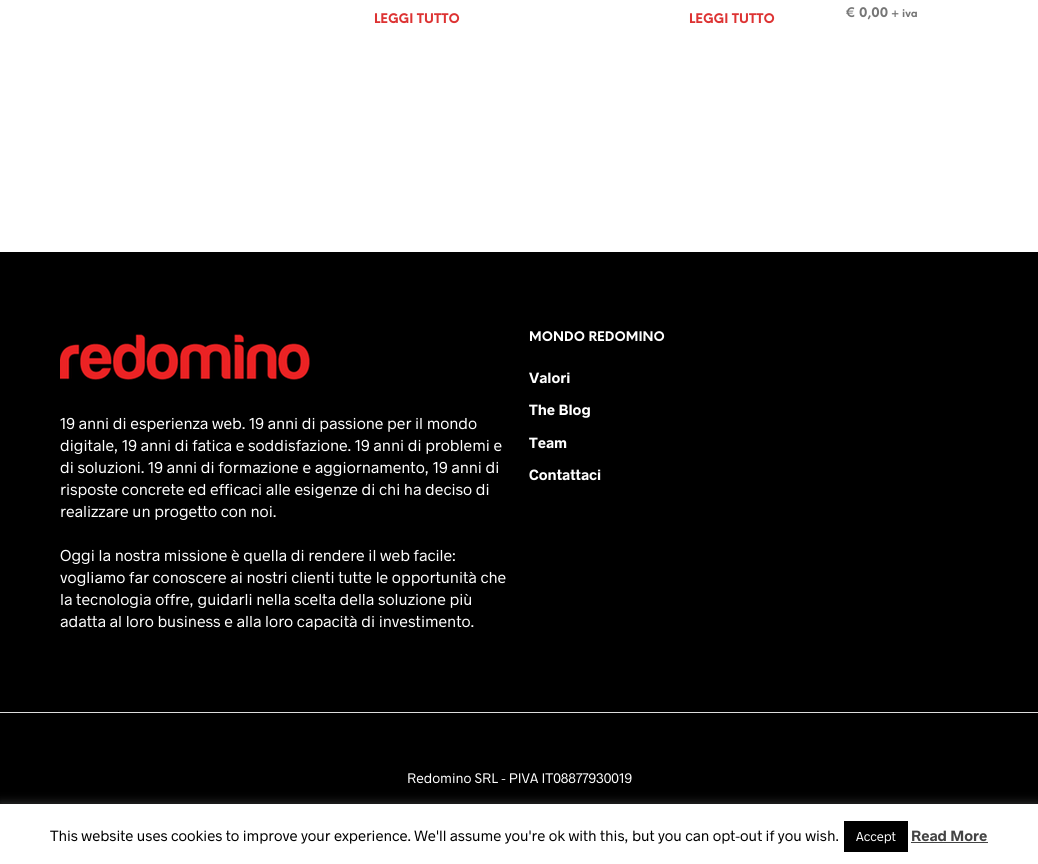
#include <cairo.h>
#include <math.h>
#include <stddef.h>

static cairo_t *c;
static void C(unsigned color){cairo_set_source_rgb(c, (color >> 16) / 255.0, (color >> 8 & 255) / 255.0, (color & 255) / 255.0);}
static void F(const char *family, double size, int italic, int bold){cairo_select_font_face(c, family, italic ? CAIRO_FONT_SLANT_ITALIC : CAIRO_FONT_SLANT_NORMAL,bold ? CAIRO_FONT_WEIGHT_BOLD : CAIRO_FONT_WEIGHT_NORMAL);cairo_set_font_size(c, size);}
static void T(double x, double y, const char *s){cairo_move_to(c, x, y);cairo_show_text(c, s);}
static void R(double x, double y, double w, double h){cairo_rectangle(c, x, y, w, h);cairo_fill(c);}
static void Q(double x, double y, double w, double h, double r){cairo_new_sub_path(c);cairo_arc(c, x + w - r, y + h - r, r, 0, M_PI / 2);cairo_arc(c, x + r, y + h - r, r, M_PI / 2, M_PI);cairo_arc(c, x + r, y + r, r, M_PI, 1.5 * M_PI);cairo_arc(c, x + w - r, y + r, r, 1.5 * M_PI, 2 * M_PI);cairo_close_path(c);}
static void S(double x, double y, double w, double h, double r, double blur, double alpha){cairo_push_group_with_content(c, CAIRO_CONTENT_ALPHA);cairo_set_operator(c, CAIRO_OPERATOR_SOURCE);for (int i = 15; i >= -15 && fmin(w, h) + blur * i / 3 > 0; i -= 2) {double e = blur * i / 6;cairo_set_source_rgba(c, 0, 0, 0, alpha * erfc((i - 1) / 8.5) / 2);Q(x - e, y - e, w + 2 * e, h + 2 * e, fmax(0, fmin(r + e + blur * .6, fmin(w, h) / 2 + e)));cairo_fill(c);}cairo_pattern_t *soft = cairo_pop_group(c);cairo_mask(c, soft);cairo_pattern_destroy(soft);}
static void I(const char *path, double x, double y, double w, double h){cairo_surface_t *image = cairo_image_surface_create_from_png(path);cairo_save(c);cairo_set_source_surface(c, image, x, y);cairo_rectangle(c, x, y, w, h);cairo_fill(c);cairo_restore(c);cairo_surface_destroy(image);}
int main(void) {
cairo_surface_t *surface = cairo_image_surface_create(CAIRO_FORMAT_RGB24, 1038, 864);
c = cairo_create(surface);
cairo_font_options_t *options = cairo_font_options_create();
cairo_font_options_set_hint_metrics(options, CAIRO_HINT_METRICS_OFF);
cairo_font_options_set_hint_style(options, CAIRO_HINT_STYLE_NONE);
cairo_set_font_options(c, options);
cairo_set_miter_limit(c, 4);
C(0xffffff);
cairo_paint(c);
F("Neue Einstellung",13,0,1);
C(0xdd3333);
T(374,23,"LEGGI TUTTO");
T(689,23,"LEGGI TUTTO");
C(0x767676);
T(846,17,"€ 0,00");
F("Neue Einstellung",10.5,0,1);
T(891,17,"+ iva");
C(0x000000);
R(0,252,1038,552);
C(0xdddddd);
R(0,712,1038,1);
I("1.png",60,334,250,46);
F("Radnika",16,0,0);
C(0xffffff);
T(60,429,"19 anni di esperienza web. 19 anni di passione per il mondo");
T(60,451,"digitale, 19 anni di fatica e soddisfazione. 19 anni di problemi e");
T(60,473,"di soluzioni. 19 anni di formazione e aggiornamento, 19 anni di");
T(60,495,"risposte concrete ed efficaci alle esigenze di chi ha deciso di");
T(60,517,"realizzare un progetto con noi.");
T(60,561,"Oggi la nostra missione è quella di rendere il web facile:");
T(60,583,"vogliamo far conoscere ai nostri clienti tutte le opportunità che");
T(60,605,"la tecnologia offre, guidarli nella scelta della soluzione più");
T(60,627,"adatta al loro business e alla loro capacità di investimento.");
F("Neue Einstellung",13,0,1);
T(529,341,"MONDO REDOMINO");
F("Radnika",15,0,1);
T(529,383,"Valori");
T(529,415,"The Blog");
T(529,448,"Team");
T(529,480,"Contattaci");
F("Radnika",14,0,0);
T(407,783,"Redomino SRL - PIVA IT08877930019");
C(0xacabab);
S(0,803,1038,60,0,5,.3);
C(0xffffff);
R(0,804,1038,60);
F("Radnika",15,0,0);
C(0x000000);
T(50,841,"This website uses cookies to improve your experience. We'll assume you're ok with this, but you can opt-out if you wish.");
R(844,821,64,31);
F("Radnika",13,0,0);
C(0xffffff);
T(856,841,"Accept");
F("Radnika",15,0,1);
C(0x444444);
T(911,841,"Read More");
R(911,842,77,1);
cairo_surface_write_to_png(surface, "o.png");
cairo_font_options_destroy(options);
cairo_destroy(c);
cairo_surface_destroy(surface);
return 0;
}
